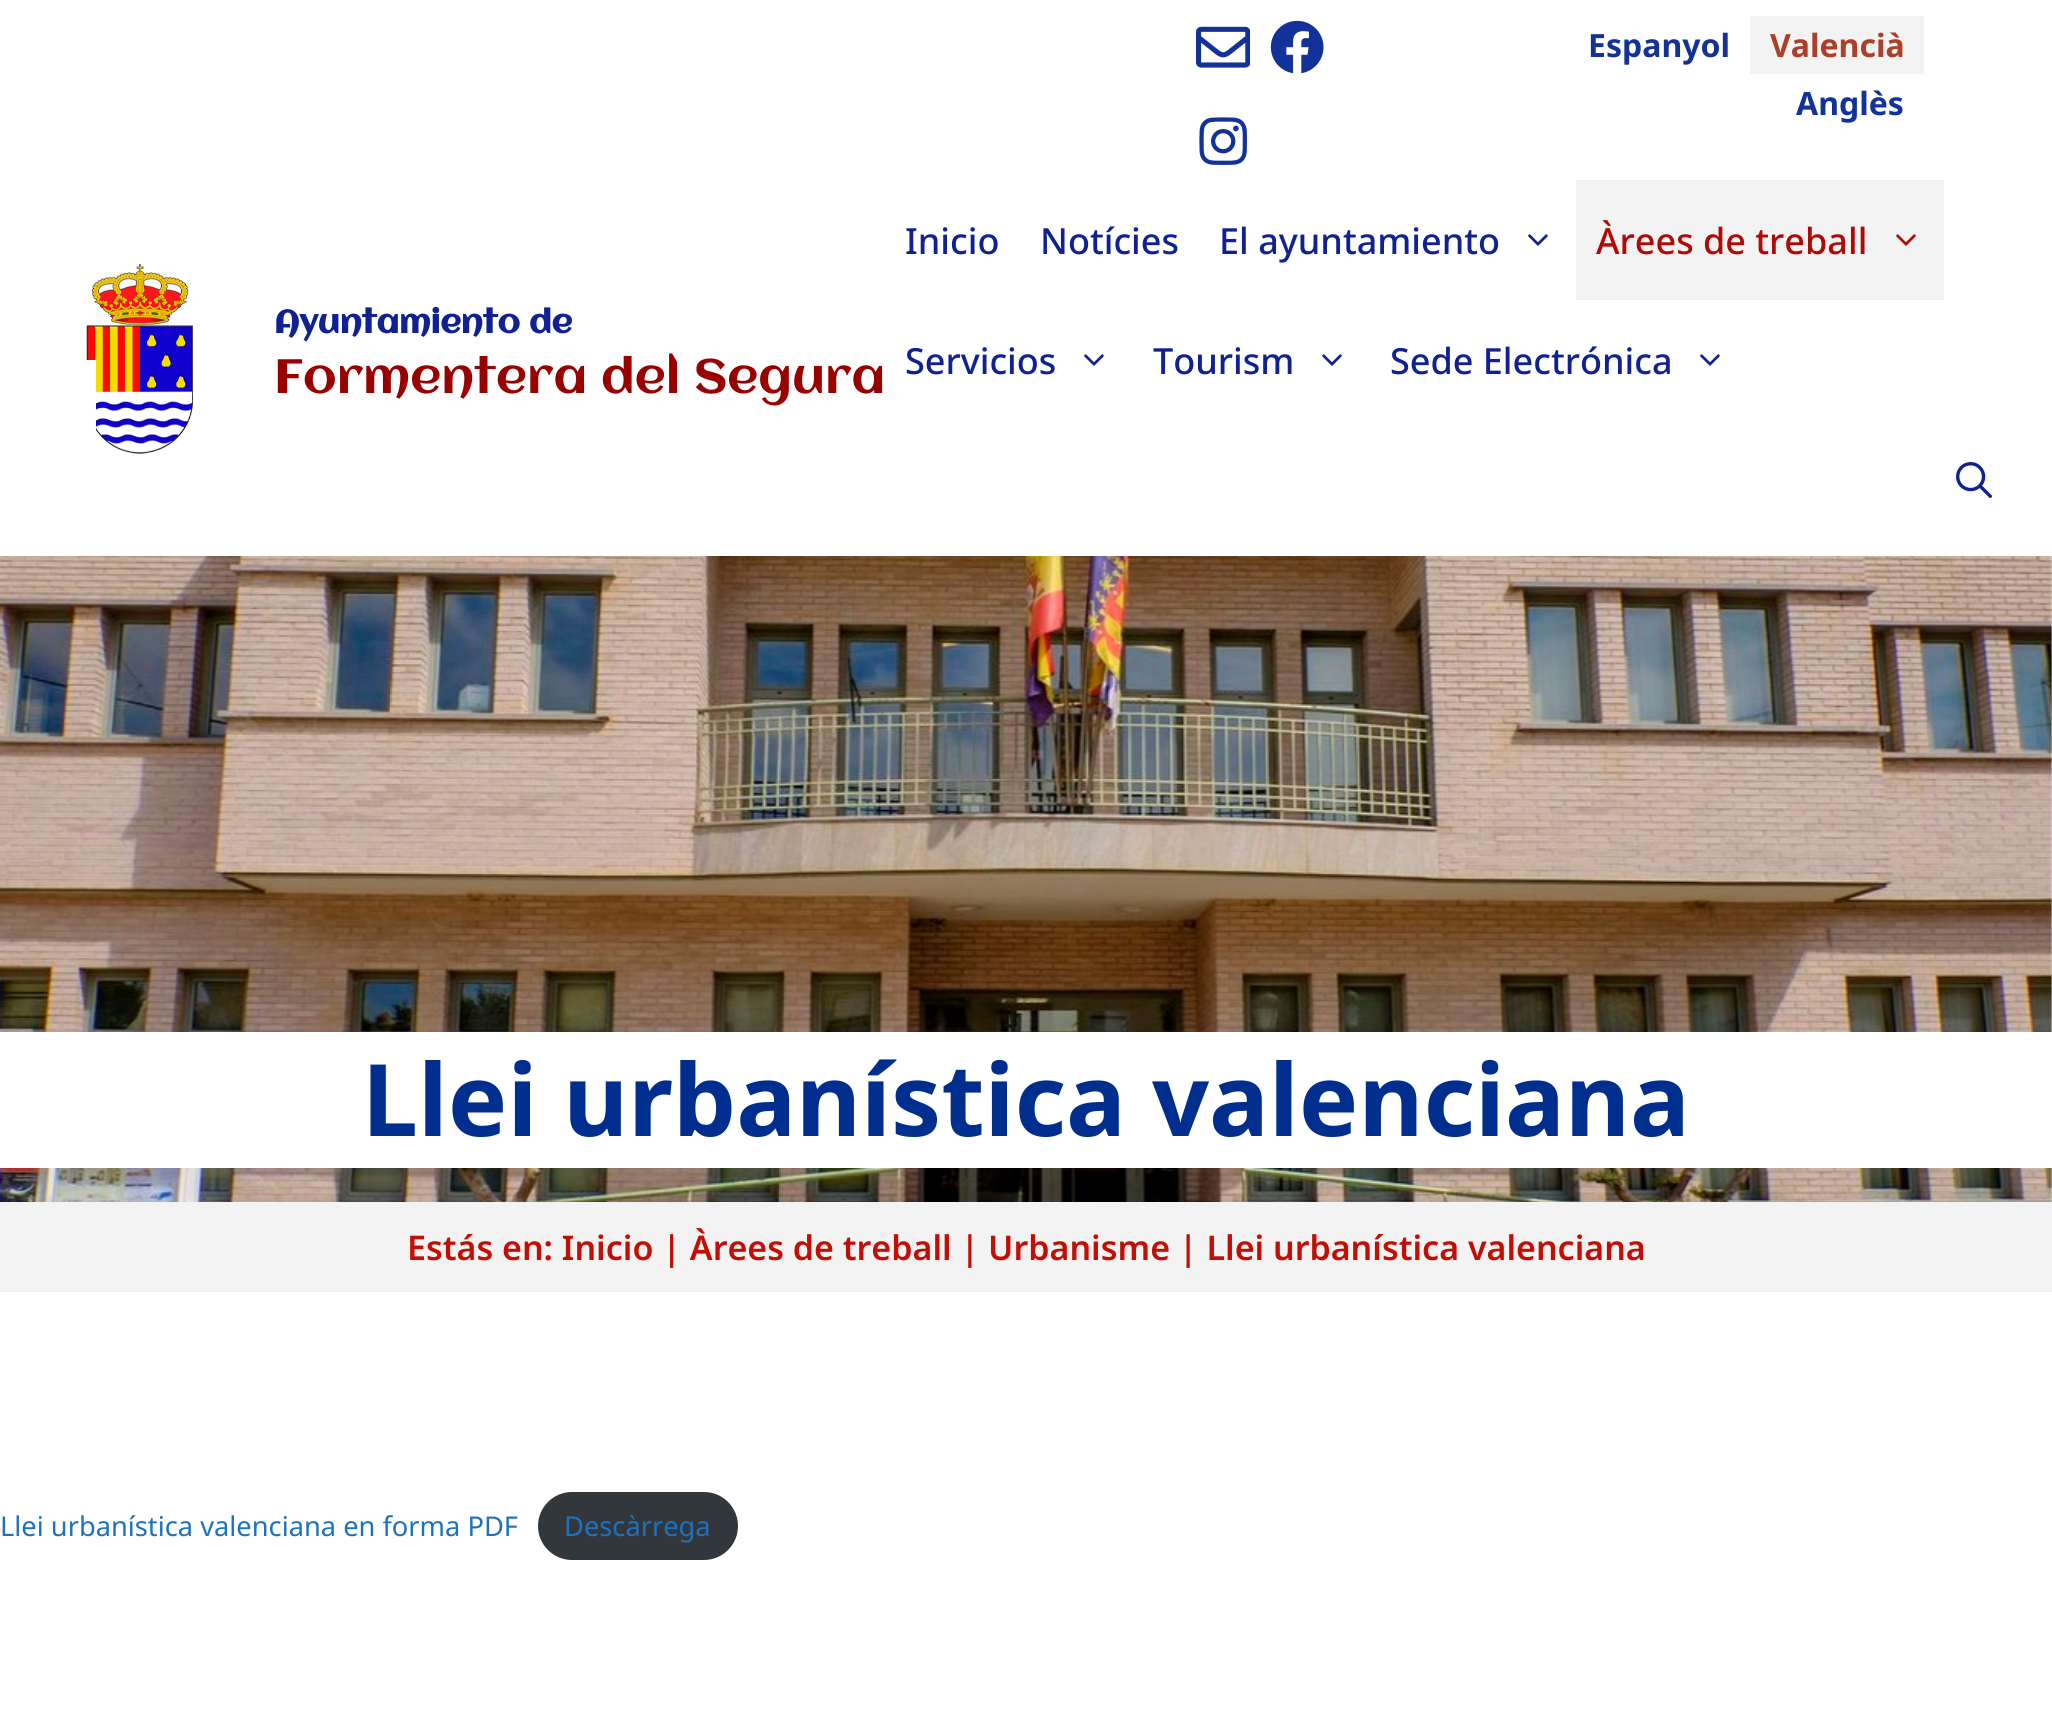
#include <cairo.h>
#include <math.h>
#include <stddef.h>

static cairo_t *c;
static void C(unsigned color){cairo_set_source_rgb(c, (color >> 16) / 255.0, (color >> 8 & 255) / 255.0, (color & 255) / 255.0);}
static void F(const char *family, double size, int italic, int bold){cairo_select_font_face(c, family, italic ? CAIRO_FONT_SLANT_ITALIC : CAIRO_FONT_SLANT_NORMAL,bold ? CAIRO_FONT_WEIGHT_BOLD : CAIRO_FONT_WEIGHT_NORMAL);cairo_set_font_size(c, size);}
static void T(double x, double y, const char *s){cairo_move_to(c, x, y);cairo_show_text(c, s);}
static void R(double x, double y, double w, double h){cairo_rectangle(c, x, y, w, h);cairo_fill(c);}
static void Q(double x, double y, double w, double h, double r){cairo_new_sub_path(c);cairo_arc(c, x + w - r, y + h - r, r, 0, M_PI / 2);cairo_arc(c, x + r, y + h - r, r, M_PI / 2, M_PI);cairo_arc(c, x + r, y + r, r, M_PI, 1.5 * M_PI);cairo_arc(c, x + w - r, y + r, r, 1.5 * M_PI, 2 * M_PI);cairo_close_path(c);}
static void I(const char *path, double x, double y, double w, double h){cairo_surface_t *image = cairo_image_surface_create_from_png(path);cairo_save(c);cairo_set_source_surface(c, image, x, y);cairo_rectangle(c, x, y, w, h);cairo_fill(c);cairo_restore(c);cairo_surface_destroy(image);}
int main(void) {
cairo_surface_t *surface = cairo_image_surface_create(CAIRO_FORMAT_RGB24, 2052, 1721);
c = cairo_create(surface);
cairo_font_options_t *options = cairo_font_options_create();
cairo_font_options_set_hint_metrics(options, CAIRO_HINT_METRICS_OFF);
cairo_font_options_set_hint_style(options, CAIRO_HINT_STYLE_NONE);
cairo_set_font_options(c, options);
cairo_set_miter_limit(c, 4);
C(0xffffff);
cairo_paint(c);
I("1.png",1196,26,54,42);
I("2.png",1270,20,54,54);
I("3.png",1199,117,48,48);
F("Noto Sans",32,0,1);
C(0x123199);
T(1588,57,"Espanyol");
C(0xf3f3f3);
R(1750,16,174,58);
C(0xad3e27);
T(1770,57,"Valencià");
C(0x123199);
T(1796,115,"Anglès");
I("4.png",86,263,107,191);
C(0xffffff);
R(86,360,10,70);
F("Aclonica",32,0,1);
C(0x102193);
T(274,333,"Ayuntamiento de");
F("Aclonica",48,0,0);
C(0x990101);
T(274,393,"Formentera del Segura");
F("Noto Sans Medium",36,0,0);
C(0x102193);
T(905,254,"Inicio");
T(1040,254,"Notícies");
T(1219,254,"El ayuntamiento");
I("5.png",1528,234,20,12);
C(0xf3f3f3);
R(1576,180,368,120);
C(0xaf0a05);
T(1596,254,"Àrees de treball");
I("6.png",1896,234,20,12);
C(0x102193);
T(905,374,"Servicios");
I("5.png",1084,354,20,12);
T(1153,374,"Tourism");
I("5.png",1322,354,20,12);
T(1390,374,"Sede Electrónica");
I("5.png",1700,354,20,12);
I("7.png",1956,462,36,36);
I("8.png",0,556,2052,646);
C(0xffffff);
R(0,1032,2052,136);
F("Noto Sans",100,0,1);
C(0x002e8f);
T(362,1136,"Llei urbanística valenciana");
C(0xf3f3f3);
R(0,1202,2052,90);
F("Noto Sans SemiBold",34,0,0);
C(0xc30e05);
T(407,1260,"Estás en: Inicio | Àrees de treball | Urbanisme | Llei urbanística valenciana");
F("Noto Sans",27.25,0,0);
C(0x1e72bd);
T(0,1536,"Llei urbanística valenciana en forma PDF");
C(0x32373c);
Q(538,1492,200,68,34);
cairo_fill(c);
C(0x1e72bd);
T(564,1536,"Descàrrega");
cairo_surface_write_to_png(surface, "o.png");
cairo_font_options_destroy(options);
cairo_destroy(c);
cairo_surface_destroy(surface);
return 0;
}
